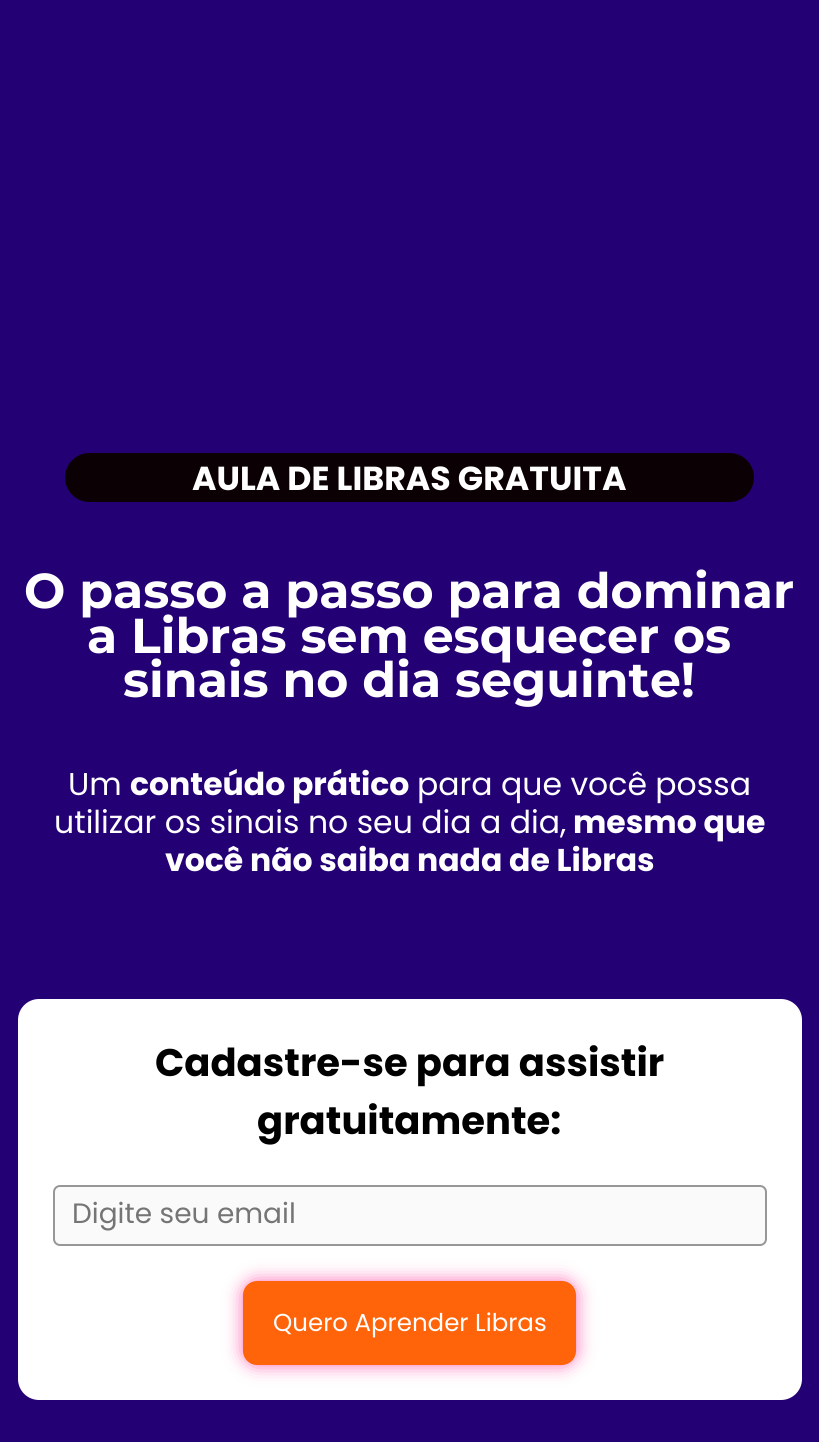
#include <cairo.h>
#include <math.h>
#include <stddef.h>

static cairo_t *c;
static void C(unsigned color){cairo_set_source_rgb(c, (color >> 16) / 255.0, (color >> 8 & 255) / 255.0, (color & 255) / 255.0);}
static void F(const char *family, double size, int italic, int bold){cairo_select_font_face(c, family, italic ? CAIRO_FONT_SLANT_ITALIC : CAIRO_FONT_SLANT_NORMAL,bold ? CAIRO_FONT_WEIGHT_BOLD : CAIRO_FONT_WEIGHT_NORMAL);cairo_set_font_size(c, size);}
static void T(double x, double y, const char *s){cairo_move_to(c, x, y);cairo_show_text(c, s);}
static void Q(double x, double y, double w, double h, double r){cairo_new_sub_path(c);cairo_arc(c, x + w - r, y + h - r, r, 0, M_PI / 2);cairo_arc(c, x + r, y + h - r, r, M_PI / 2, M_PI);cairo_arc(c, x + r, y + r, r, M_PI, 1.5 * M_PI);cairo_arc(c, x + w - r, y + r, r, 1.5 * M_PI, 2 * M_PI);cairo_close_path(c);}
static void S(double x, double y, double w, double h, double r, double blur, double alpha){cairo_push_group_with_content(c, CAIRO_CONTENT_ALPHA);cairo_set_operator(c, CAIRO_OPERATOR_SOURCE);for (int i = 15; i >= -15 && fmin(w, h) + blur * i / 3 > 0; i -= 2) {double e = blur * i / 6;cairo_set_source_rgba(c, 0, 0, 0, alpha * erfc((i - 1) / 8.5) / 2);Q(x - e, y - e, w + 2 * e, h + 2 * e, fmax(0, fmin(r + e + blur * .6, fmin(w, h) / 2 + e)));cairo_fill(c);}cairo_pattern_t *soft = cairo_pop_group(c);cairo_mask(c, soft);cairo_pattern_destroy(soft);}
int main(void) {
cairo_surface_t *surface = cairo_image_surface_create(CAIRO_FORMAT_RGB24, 819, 1442);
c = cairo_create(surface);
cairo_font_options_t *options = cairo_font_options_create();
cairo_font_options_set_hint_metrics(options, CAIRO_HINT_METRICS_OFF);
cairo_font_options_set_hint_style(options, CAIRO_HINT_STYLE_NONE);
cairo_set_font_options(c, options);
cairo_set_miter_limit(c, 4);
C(0x240075);
cairo_paint(c);
C(0x0b0004);
Q(65,453,689,49,24.5);
cairo_fill(c);
F("Poppins",33.25,0,1);
C(0xffffff);
T(192,490,"AULA DE LIBRAS GRATUITA");
F("Montserrat",49,0,1);
T(24,608,"O passo a passo para dominar");
T(87,653,"a Libras sem esquecer os");
T(123,697,"sinais no dia seguinte!");
F("Poppins",31.5,0,0);
T(68,795,"Um");
F("Poppins",31.5,0,1);
T(130,795,"conteúdo prático");
F("Poppins",31.5,0,0);
T(417,795,"para que você possa");
T(54,833,"utilizar os sinais no seu dia a dia,");
F("Poppins",31.5,0,1);
T(573,833,"mesmo que");
T(165,871,"você não saiba nada de Libras");
Q(18,999,784,401,21);
cairo_fill(c);
F("Poppins",38.5,0,1);
C(0x000000);
T(155,1076,"Cadastre-se para assistir");
T(257,1134,"gratuitamente:");
C(0xfafafa);
Q(54,1186,712,59,6);
cairo_fill_preserve(c);
C(0x979797);
cairo_stroke(c);
F("Poppins",28,0,0);
C(0x757575);
T(72,1223,"Digite seu email");
C(0xff69b4);
S(243,1281,333,84,14,9,1);
C(0xff640a);
Q(243,1281,333,84,14);
cairo_fill(c);
F("Poppins",24.5,0,0);
C(0xffffff);
T(273,1331,"Quero Aprender Libras");
cairo_surface_write_to_png(surface, "o.png");
cairo_font_options_destroy(options);
cairo_destroy(c);
cairo_surface_destroy(surface);
return 0;
}
